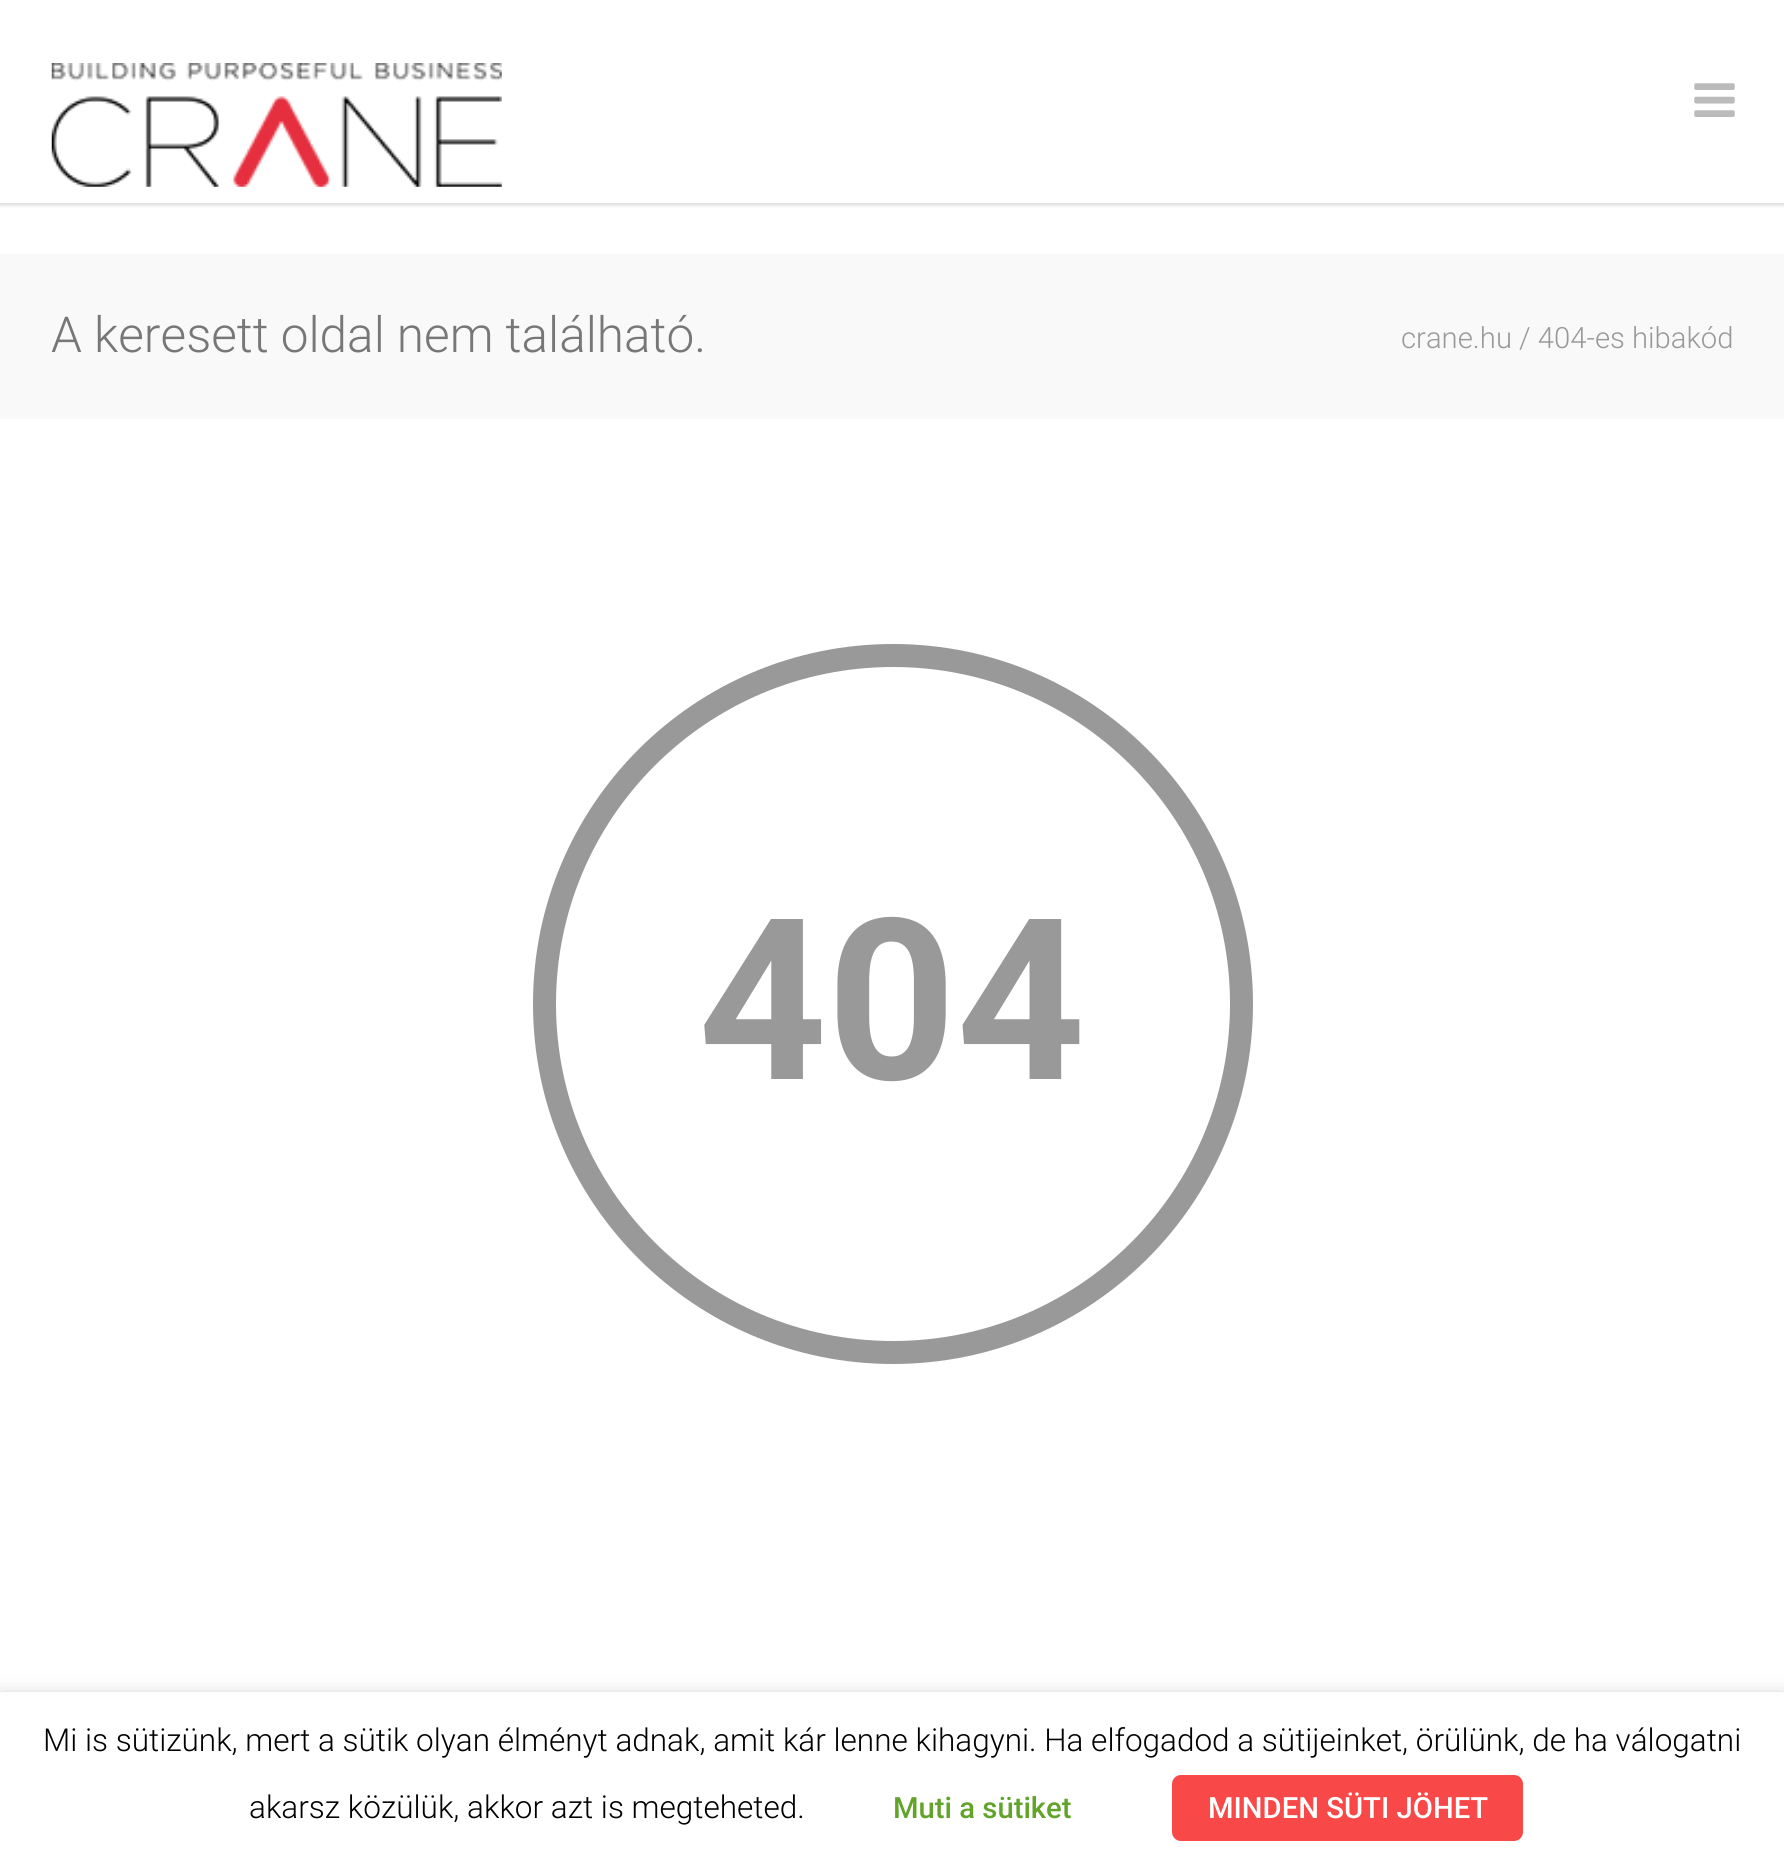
#include <cairo.h>
#include <math.h>
#include <stddef.h>

static cairo_t *c;
static void C(unsigned color){cairo_set_source_rgb(c, (color >> 16) / 255.0, (color >> 8 & 255) / 255.0, (color & 255) / 255.0);}
static void F(const char *family, double size, int italic, int bold){cairo_select_font_face(c, family, italic ? CAIRO_FONT_SLANT_ITALIC : CAIRO_FONT_SLANT_NORMAL,bold ? CAIRO_FONT_WEIGHT_BOLD : CAIRO_FONT_WEIGHT_NORMAL);cairo_set_font_size(c, size);}
static void T(double x, double y, const char *s){cairo_move_to(c, x, y);cairo_show_text(c, s);}
static void R(double x, double y, double w, double h){cairo_rectangle(c, x, y, w, h);cairo_fill(c);}
static void Q(double x, double y, double w, double h, double r){cairo_new_sub_path(c);cairo_arc(c, x + w - r, y + h - r, r, 0, M_PI / 2);cairo_arc(c, x + r, y + h - r, r, M_PI / 2, M_PI);cairo_arc(c, x + r, y + r, r, M_PI, 1.5 * M_PI);cairo_arc(c, x + w - r, y + r, r, 1.5 * M_PI, 2 * M_PI);cairo_close_path(c);}
static void S(double x, double y, double w, double h, double r, double blur, double alpha){cairo_push_group_with_content(c, CAIRO_CONTENT_ALPHA);cairo_set_operator(c, CAIRO_OPERATOR_SOURCE);for (int i = 15; i >= -15 && fmin(w, h) + blur * i / 3 > 0; i -= 2) {double e = blur * i / 6;cairo_set_source_rgba(c, 0, 0, 0, alpha * erfc((i - 1) / 8.5) / 2);Q(x - e, y - e, w + 2 * e, h + 2 * e, fmax(0, fmin(r + e + blur * .6, fmin(w, h) / 2 + e)));cairo_fill(c);}cairo_pattern_t *soft = cairo_pop_group(c);cairo_mask(c, soft);cairo_pattern_destroy(soft);}
static void I(const char *path, double x, double y, double w, double h){cairo_surface_t *image = cairo_image_surface_create_from_png(path);cairo_save(c);cairo_set_source_surface(c, image, x, y);cairo_rectangle(c, x, y, w, h);cairo_fill(c);cairo_restore(c);cairo_surface_destroy(image);}
int main(void) {
cairo_surface_t *surface = cairo_image_surface_create(CAIRO_FORMAT_RGB24, 1784, 1873);
c = cairo_create(surface);
cairo_font_options_t *options = cairo_font_options_create();
cairo_font_options_set_hint_metrics(options, CAIRO_HINT_METRICS_OFF);
cairo_font_options_set_hint_style(options, CAIRO_HINT_STYLE_NONE);
cairo_set_font_options(c, options);
cairo_set_miter_limit(c, 4);
C(0xffffff);
cairo_paint(c);
C(0x000000);
S(-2,-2,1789,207,0,2,.16);
C(0xffffff);
R(0,0,1784,203);
I("1.png",51,63,451,124);
I("2.png",1694,83,41,34);
C(0xf9f9f9);
R(0,254,1784,165);
F("Roboto Light",49.5,0,0);
C(0x777777);
T(51,352,"A keresett oldal nem található.");
F("Roboto Light",29.25,0,0);
C(0x999999);
T(1401,348,"crane.hu / 404-es hibakód");
cairo_new_path(c);
cairo_arc(c,893,1004,348.5,0,2 * M_PI);
cairo_set_line_width(c,23);
cairo_stroke(c);
F("Roboto",225,0,1);
T(698,1079,"404");
C(0x000000);
S(0,1703,1784,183,0,11,.5);
C(0xffffff);
R(0,1692,1784,181);
F("Roboto Light",31.5,0,0);
C(0x000000);
T(43,1751,"Mi is sütizünk, mert a sütik olyan élményt adnak, amit kár lenne kihagyni. Ha elfogadod a sütijeinket, örülünk, de ha válogatni");
T(249,1818,"akarsz közülük, akkor azt is megteheted.");
F("Roboto Medium",29.25,0,0);
C(0x62a329);
T(893,1818,"Muti a sütiket");
C(0xf94848);
Q(1172,1775,351,66,9);
cairo_fill(c);
C(0xffffff);
T(1208,1818,"MINDEN SÜTI JÖHET");
cairo_surface_write_to_png(surface, "o.png");
cairo_font_options_destroy(options);
cairo_destroy(c);
cairo_surface_destroy(surface);
return 0;
}
